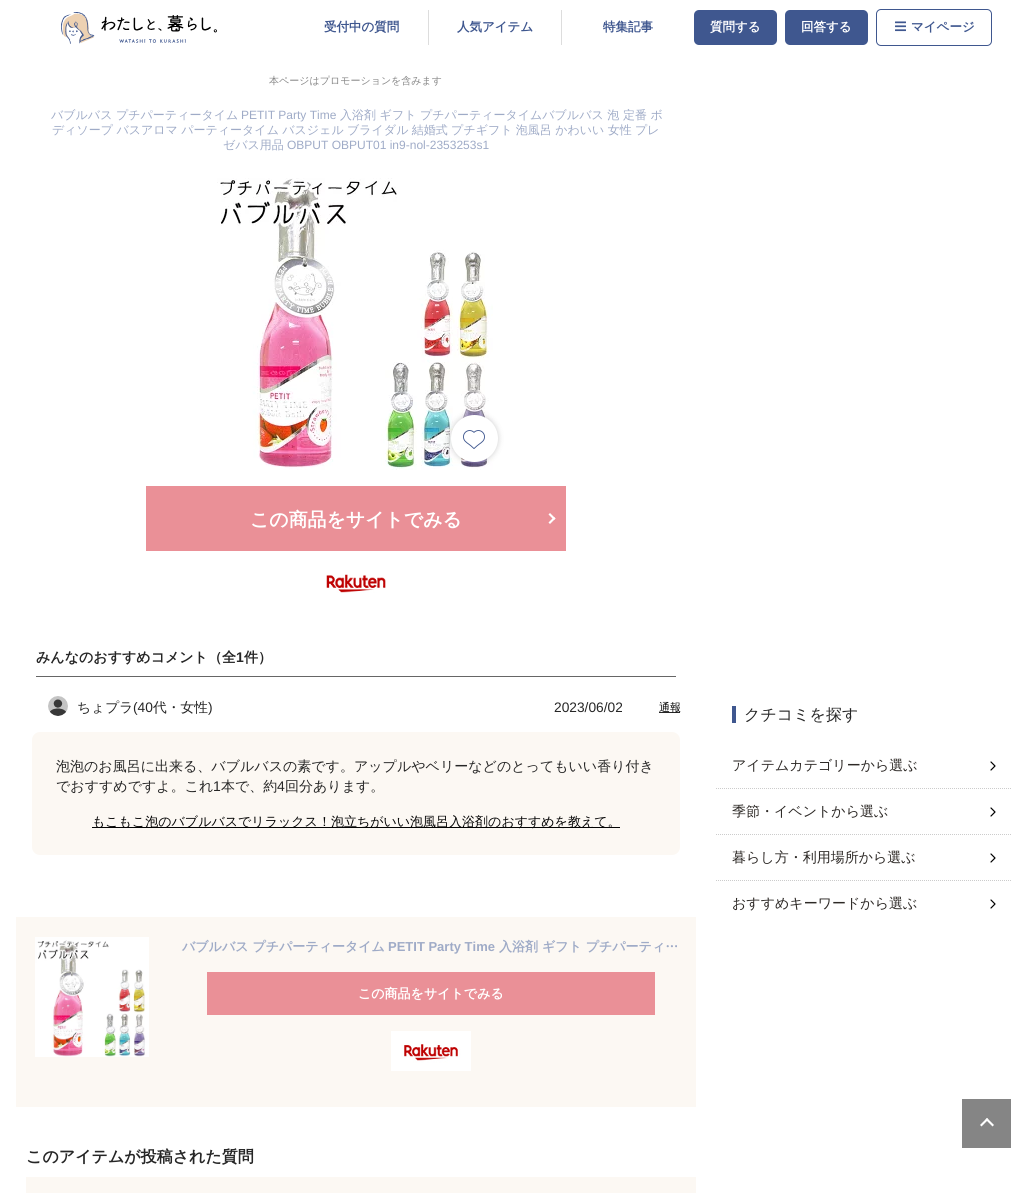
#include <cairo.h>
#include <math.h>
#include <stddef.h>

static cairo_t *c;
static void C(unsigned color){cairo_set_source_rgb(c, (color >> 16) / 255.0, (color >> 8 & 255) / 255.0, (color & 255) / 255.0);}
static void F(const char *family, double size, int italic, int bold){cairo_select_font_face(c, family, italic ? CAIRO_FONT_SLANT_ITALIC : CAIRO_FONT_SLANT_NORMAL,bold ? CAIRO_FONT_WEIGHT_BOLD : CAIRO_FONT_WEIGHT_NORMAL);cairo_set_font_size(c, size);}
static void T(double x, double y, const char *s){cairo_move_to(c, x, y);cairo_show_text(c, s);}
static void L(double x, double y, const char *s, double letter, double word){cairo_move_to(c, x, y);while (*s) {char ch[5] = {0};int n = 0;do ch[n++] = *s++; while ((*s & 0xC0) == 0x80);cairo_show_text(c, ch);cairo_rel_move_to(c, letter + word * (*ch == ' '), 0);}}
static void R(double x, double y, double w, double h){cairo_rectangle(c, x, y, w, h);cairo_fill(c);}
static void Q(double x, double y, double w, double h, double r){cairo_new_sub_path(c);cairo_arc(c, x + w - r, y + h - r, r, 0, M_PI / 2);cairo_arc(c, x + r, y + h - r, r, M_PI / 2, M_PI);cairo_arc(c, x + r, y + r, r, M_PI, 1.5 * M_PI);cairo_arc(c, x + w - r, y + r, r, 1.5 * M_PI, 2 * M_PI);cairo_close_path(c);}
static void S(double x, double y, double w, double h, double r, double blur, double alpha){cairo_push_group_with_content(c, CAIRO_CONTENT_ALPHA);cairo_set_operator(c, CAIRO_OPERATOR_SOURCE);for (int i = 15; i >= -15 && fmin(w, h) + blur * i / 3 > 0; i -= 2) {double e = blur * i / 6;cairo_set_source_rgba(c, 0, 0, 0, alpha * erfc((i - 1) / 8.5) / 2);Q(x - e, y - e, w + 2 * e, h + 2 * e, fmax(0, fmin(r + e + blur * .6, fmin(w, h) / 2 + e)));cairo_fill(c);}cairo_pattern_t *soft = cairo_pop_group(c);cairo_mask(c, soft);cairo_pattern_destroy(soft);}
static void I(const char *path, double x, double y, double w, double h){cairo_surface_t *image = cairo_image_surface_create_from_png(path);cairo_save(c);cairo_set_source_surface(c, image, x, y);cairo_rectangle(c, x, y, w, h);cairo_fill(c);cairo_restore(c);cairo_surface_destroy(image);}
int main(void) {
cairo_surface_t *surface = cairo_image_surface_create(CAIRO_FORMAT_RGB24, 1011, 1193);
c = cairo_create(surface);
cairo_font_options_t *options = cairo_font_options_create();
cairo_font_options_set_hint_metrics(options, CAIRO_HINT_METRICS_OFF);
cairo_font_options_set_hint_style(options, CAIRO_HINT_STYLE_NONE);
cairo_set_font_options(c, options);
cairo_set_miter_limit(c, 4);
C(0xffffff);
cairo_paint(c);
I("1.png",61,12,156,32);
F("WenQuanYi Zen Hei",12.5,0,1);
C(0x3f578f);
T(324,31,"受付中の質問");
C(0xdddddd);
R(428,10,1,35);
C(0x3f578f);
T(457,31,"人気アイテム");
C(0xdddddd);
R(561,10,1,35);
C(0x3f578f);
T(603,31,"特集記事");
Q(694,10,83,35,5);
cairo_fill(c);
C(0xffffff);
T(710,31,"質問する");
C(0x3f578f);
Q(785,10,83,35,5);
cairo_fill(c);
C(0xffffff);
T(801,31,"回答する");
Q(876.5,9.5,115,36,4.5);
C(0x3f578f);
cairo_set_line_width(c,1);
cairo_stroke(c);
I("2.png",895,21,11,11);
T(911,31,"マイページ");
F("WenQuanYi Zen Hei Medium",10,0,0);
C(0x868686);
T(269,84,"本ページはプロモーションを含みます");
F("WenQuanYi Zen Hei Medium",12,0,0);
C(0x9fabc7);
T(51,119,"バブルバス プチパーティータイム");
F("Liberation Sans",12,0,0);
T(241,119,"PETIT Party Time");
F("WenQuanYi Zen Hei Medium",12,0,0);
T(340,119,"入浴剤 ギフト プチパーティータイムバブルバス 泡 定番 ボ");
L(52,134,"ディソープ バスアロマ パーティータイム バスジェル ブライダル 結婚式 プチギフト 泡風呂 かわいい 女性 プレ",0,-.25);
T(223,149,"ゼバス用品");
F("Liberation Sans",12,0,0);
T(287,149,"OBPUT OBPUT01 in9-nol-2353253s1");
I("3.png",217,178,276,292);
C(0x000000);
S(451,415,47,47,23.5,3,.2);
C(0xffffff);
cairo_arc(c,474.5,438.5,23.5,0,2 * M_PI);
cairo_fill(c);
I("4.png",463,430,22,19);
C(0xea9097);
R(146,486,420,65);
F("WenQuanYi Zen Hei",18.9,0,1);
C(0xffffff);
T(250,526,"この商品をサイトでみる");
cairo_new_path(c);
cairo_move_to(c,548.5,514.5);
cairo_line_to(c,550,513);
cairo_line_to(c,555.5,518.5);
cairo_line_to(c,554,520);
cairo_close_path(c);
cairo_fill(c);
cairo_new_path(c);
cairo_move_to(c,548.5,522.5);
cairo_line_to(c,554,517);
cairo_line_to(c,555.5,518.5);
cairo_line_to(c,550,524);
cairo_close_path(c);
cairo_fill(c);
I("5.png",326,574,60,19);
C(0x666666);
R(36,676,640,1);
F("WenQuanYi Zen Hei",14,0,1);
C(0x262626);
T(36,662,"みんなのおすすめコメント（全");
F("Liberation Sans",14,0,1);
T(236,662,"1");
F("WenQuanYi Zen Hei",14,0,1);
T(244,662,"件）");
I("6.png",48,696,20,20);
F("WenQuanYi Zen Hei Medium",13.75,0,0);
T(77,712,"ちょプラ");
F("Liberation Sans",13.75,0,0);
T(133,712,"(40");
F("WenQuanYi Zen Hei Medium",13.75,0,0);
T(153,712,"代・女性");
F("Liberation Sans",13.75,0,0);
T(208,712,")");
T(554,712,"2023/06/02");
R(659,712,21,1);
F("WenQuanYi Zen Hei Medium",11,0,0);
C(0x030303);
T(659,711,"通報");
C(0xfcf8f3);
Q(32,732,648,123,8);
cairo_fill(c);
F("WenQuanYi Zen Hei Medium",14,0,0);
C(0x262626);
T(56,771,"泡泡のお風呂に出来る、バブルバスの素です。アップルやベリーなどのとってもいい香り付き");
T(56,791,"でおすすめですよ。これ");
F("Liberation Sans",14,0,0);
T(213,791,"1");
F("WenQuanYi Zen Hei Medium",14,0,0);
T(221,791,"本で、約");
F("Liberation Sans",14,0,0);
T(277,791,"4");
F("WenQuanYi Zen Hei Medium",14,0,0);
T(285,791,"回分あります。");
C(0x030303);
R(92,827,528,1);
F("WenQuanYi Zen Hei Medium",13,0,0);
T(92,826,"もこもこ泡のバブルバスでリラックス！泡立ちがいい泡風呂入浴剤のおすすめを教えて。");
C(0xfcf8f3);
R(16,917,680,190);
I("7.png",35,937,114,120);
F("WenQuanYi Zen Hei",13,0,1);
C(0x9fabc7);
T(182,951,"バブルバス プチパーティータイム");
F("Liberation Sans",13,0,1);
T(388,951,"PETIT Party Time");
F("WenQuanYi Zen Hei",13,0,1);
T(499,951,"入浴剤 ギフト プチパーティ…");
C(0xea9097);
R(207,972,448,43);
C(0xffffff);
T(358,998,"この商品をサイトでみる");
I("8.png",391,1031,80,40);
F("WenQuanYi Zen Hei",16,0,1);
C(0x262626);
T(26,1162,"このアイテムが投稿された質問");
C(0xfcf8f3);
R(26,1177,670,16);
C(0x3f578f);
R(732,706,4,17);
F("WenQuanYi Zen Hei Medium",16,0,0);
C(0x262626);
T(744,720,"クチコミを探す");
cairo_new_path(c);
cairo_move_to(c,716,788.5);
cairo_line_to(c,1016,788.5);
C(0xcccccc);
cairo_set_dash(c,(double[]){1,1},2,0);
cairo_stroke(c);
F("WenQuanYi Zen Hei Medium",14,0,0);
C(0x2d2926);
T(732,770,"アイテムカテゴリーから選ぶ");
cairo_new_path(c);
cairo_move_to(c,991,762);
cairo_line_to(c,995,766);
cairo_line_to(c,991,770);
C(0x000000);
cairo_set_line_width(c,1.2);
cairo_set_line_cap(c,CAIRO_LINE_CAP_ROUND);
cairo_set_line_join(c,CAIRO_LINE_JOIN_ROUND);
cairo_set_dash(c,NULL,0,0);
cairo_stroke(c);
cairo_new_path(c);
cairo_move_to(c,716,834.5);
cairo_line_to(c,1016,834.5);
C(0xcccccc);
cairo_set_line_width(c,1);
cairo_set_line_cap(c,CAIRO_LINE_CAP_BUTT);
cairo_set_line_join(c,CAIRO_LINE_JOIN_MITER);
cairo_set_dash(c,(double[]){1,1},2,0);
cairo_stroke(c);
C(0x2d2926);
T(732,816,"季節・イベントから選ぶ");
cairo_new_path(c);
cairo_move_to(c,991,808);
cairo_line_to(c,995,812);
cairo_line_to(c,991,816);
C(0x000000);
cairo_set_line_width(c,1.2);
cairo_set_line_cap(c,CAIRO_LINE_CAP_ROUND);
cairo_set_line_join(c,CAIRO_LINE_JOIN_ROUND);
cairo_set_dash(c,NULL,0,0);
cairo_stroke(c);
cairo_new_path(c);
cairo_move_to(c,716,880.5);
cairo_line_to(c,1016,880.5);
C(0xcccccc);
cairo_set_line_width(c,1);
cairo_set_line_cap(c,CAIRO_LINE_CAP_BUTT);
cairo_set_line_join(c,CAIRO_LINE_JOIN_MITER);
cairo_set_dash(c,(double[]){1,1},2,0);
cairo_stroke(c);
C(0x2d2926);
T(732,862,"暮らし方・利用場所から選ぶ");
cairo_new_path(c);
cairo_move_to(c,991,854);
cairo_line_to(c,995,858);
cairo_line_to(c,991,862);
C(0x000000);
cairo_set_line_width(c,1.2);
cairo_set_line_cap(c,CAIRO_LINE_CAP_ROUND);
cairo_set_line_join(c,CAIRO_LINE_JOIN_ROUND);
cairo_set_dash(c,NULL,0,0);
cairo_stroke(c);
C(0x2d2926);
T(732,908,"おすすめキーワードから選ぶ");
cairo_new_path(c);
cairo_move_to(c,991,900);
cairo_line_to(c,995,904);
cairo_line_to(c,991,908);
C(0x000000);
cairo_stroke(c);
C(0x858585);
R(962,1099,49,49);
C(0xffffff);
cairo_new_path(c);
cairo_move_to(c,987,1118);
cairo_line_to(c,994,1125);
cairo_line_to(c,992.5,1126.5);
cairo_line_to(c,985.5,1119.5);
cairo_close_path(c);
cairo_fill(c);
cairo_new_path(c);
cairo_move_to(c,987,1118);
cairo_line_to(c,988.5,1119.5);
cairo_line_to(c,981.5,1126.5);
cairo_line_to(c,980,1125);
cairo_close_path(c);
cairo_fill(c);
cairo_surface_write_to_png(surface, "o.png");
cairo_font_options_destroy(options);
cairo_destroy(c);
cairo_surface_destroy(surface);
return 0;
}
